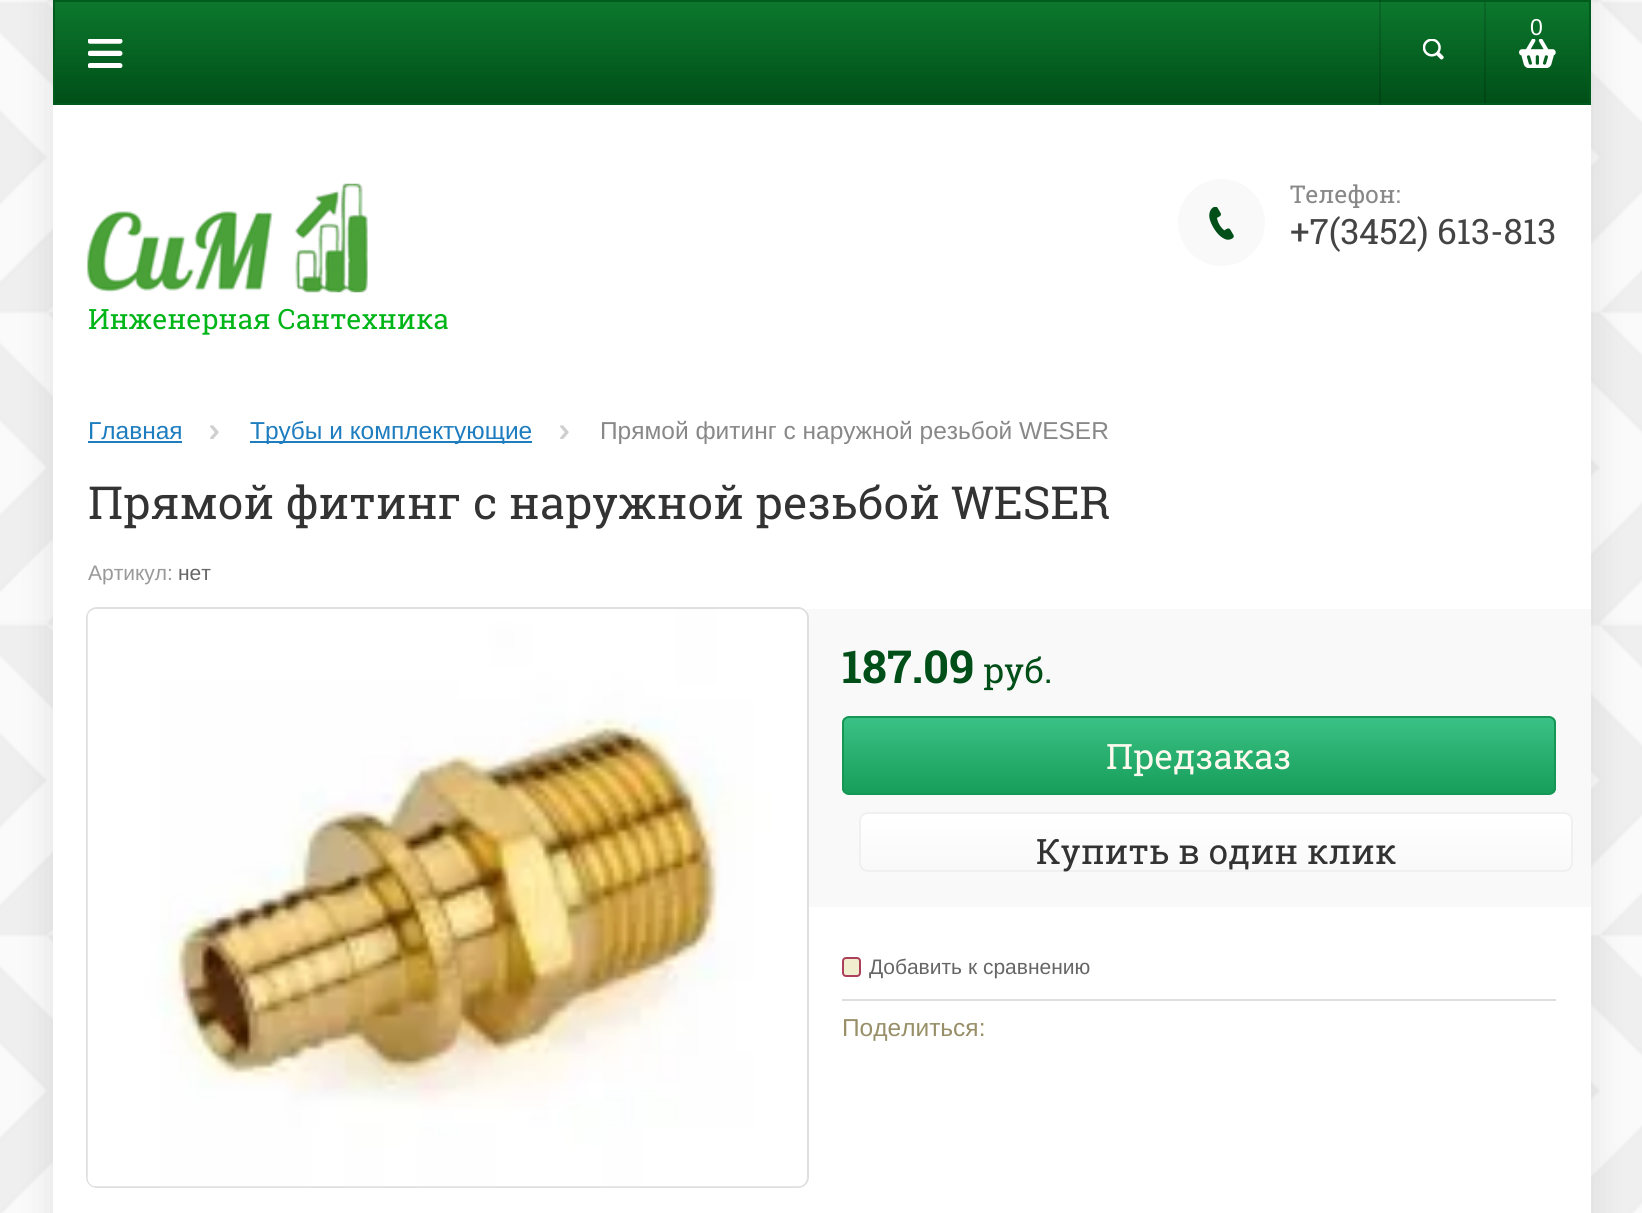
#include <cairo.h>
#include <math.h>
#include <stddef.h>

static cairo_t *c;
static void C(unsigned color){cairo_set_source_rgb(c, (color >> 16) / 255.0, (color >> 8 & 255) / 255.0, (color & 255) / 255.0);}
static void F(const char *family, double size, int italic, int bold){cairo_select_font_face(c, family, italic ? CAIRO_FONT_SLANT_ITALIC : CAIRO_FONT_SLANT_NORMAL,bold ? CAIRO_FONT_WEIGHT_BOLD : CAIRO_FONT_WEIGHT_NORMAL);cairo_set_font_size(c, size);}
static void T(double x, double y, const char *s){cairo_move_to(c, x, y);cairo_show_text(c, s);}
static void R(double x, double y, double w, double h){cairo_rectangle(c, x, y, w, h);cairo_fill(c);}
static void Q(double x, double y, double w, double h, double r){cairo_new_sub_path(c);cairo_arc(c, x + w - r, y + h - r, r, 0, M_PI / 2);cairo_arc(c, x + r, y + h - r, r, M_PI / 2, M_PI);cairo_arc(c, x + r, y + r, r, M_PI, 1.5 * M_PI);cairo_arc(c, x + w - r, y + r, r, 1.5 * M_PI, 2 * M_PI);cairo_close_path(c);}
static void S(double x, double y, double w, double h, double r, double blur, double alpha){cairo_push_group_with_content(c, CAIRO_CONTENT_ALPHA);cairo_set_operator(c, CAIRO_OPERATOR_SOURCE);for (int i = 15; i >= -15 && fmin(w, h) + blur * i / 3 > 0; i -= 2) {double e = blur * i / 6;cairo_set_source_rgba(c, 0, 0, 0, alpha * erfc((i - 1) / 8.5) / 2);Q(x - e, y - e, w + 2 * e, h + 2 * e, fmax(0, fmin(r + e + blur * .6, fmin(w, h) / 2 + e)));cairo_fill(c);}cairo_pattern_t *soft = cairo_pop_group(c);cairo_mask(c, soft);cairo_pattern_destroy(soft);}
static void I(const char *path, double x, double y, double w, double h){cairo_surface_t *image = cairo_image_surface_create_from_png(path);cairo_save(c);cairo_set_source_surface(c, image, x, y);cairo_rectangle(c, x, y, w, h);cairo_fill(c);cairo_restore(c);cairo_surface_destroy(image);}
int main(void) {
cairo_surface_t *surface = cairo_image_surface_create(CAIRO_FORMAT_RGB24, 1642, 1213);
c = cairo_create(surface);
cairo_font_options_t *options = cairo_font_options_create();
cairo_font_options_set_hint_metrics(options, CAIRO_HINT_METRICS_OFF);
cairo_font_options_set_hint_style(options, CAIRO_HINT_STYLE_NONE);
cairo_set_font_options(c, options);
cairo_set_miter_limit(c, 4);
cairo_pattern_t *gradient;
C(0xfafafa);
cairo_paint(c);
I("1.png",0,0,1642,1213);
C(0x000000);
S(53,0,1538,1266,0,17.5,.1);
gradient = cairo_pattern_create_linear(822,1.7,822,103);
cairo_pattern_add_color_stop_rgba(gradient,0,0.047,0.471,0.176,1);
cairo_pattern_add_color_stop_rgba(gradient,1,0,0.31,0.094,1);
cairo_set_source(c,gradient);
cairo_pattern_destroy(gradient);
R(55,2,1534,101);
cairo_rectangle(c,54,1,1536,103);
C(0x005c1c);
cairo_stroke(c);
I("2.png",1423,39,21,21);
cairo_set_source_rgba(c,0,0,0,0.14);
R(1379,0,2,105);
R(1484,2,2,101);
I("3.png",1519,39,37,29);
F("Liberation Sans",23,0,0);
C(0xffffff);
T(1530,35,"0");
I("4.png",88,39,35,29);
R(53,105,1538,1108);
C(0xf9f9f9);
cairo_arc(c,1221.5,222.5,43.5,0,2 * M_PI);
cairo_fill(c);
I("5.png",1209,207,25,33);
F("Roboto Slab",24.5,0,0);
C(0x888888);
T(1290,203,"Телефон:");
F("Roboto Slab",35,0,0);
C(0x444444);
T(1290,244,"+7(3452) 613-813");
I("6.png",87,183,281,110);
F("Roboto Slab",28,0,0);
C(0x00b517);
T(88,329,"Инженерная Сантехника");
F("Liberation Sans",24.5,0,0);
C(0x1e7dbf);
T(88,439,"Главная");
R(88,441,94,2);
I("7.png",210,425,9,14);
R(250,441,282,2);
T(250,439,"Трубы и комплектующие");
I("7.png",560,425,9,14);
C(0x888888);
T(600,439,"Прямой фитинг с наружной резьбой WESER");
F("Roboto Slab",45.5,0,0);
C(0x333333);
T(88,519,"Прямой фитинг с наружной резьбой WESER");
F("Liberation Sans",21,0,0);
C(0x999999);
T(88,580,"Артикул:");
C(0x666666);
T(178,580,"нет");
C(0xf9f9f9);
R(807,609,784,298);
Q(87,608,721,579,10);
C(0xdfdfdf);
cairo_stroke(c);
I("8.png",87,609,719,578);
F("Roboto Slab",45.5,0,1);
C(0x004f18);
T(842,683,"187.09");
F("Roboto Slab",35,0,0);
T(983,683,"руб.");
cairo_save(c);
Q(842,716,714,79,7);
cairo_clip(c);
gradient = cairo_pattern_create_linear(1199,718,1199,793);
cairo_pattern_add_color_stop_rgba(gradient,0,0.227,0.757,0.522,1);
cairo_pattern_add_color_stop_rgba(gradient,1,0.09,0.62,0.353,1);
cairo_set_source(c,gradient);
cairo_pattern_destroy(gradient);
R(842,718,714,75);
cairo_restore(c);
Q(843,717,712,77,6);
C(0x169756);
cairo_stroke(c);
C(0xfdf9ee);
T(1106,769,"Предзаказ");
cairo_save(c);
Q(859,812,714,60,9);
cairo_clip(c);
gradient = cairo_pattern_create_linear(1216,814,1216,870);
cairo_pattern_add_color_stop_rgba(gradient,0,1,1,1,1);
cairo_pattern_add_color_stop_rgba(gradient,1,0.976,0.976,0.976,1);
cairo_set_source(c,gradient);
cairo_pattern_destroy(gradient);
R(859,814,714,56);
cairo_restore(c);
Q(860,813,712,58,8);
C(0xf0f0f0);
cairo_stroke(c);
C(0x333333);
T(1036,864,"Купить в один клик");
C(0xdedede);
R(842,999,714,2);
C(0xf1edcf);
Q(843,958,17,18,3);
cairo_fill_preserve(c);
C(0xac405a);
cairo_stroke(c);
F("Liberation Sans",21,0,0);
C(0x666666);
T(869,974,"Добавить к сравнению");
F("Liberation Sans",24.5,0,0);
C(0x988e68);
T(842,1036,"Поделиться:");
cairo_surface_write_to_png(surface, "o.png");
cairo_font_options_destroy(options);
cairo_destroy(c);
cairo_surface_destroy(surface);
return 0;
}
